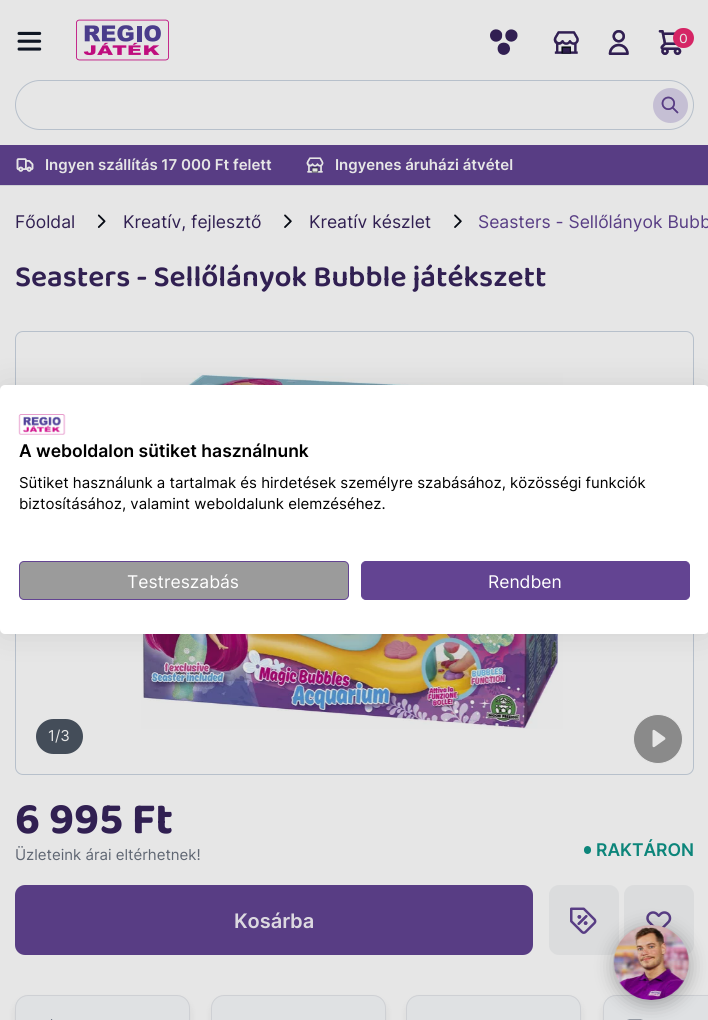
#include <cairo.h>
#include <math.h>
#include <stddef.h>

static cairo_t *c;
static void C(unsigned color){cairo_set_source_rgb(c, (color >> 16) / 255.0, (color >> 8 & 255) / 255.0, (color & 255) / 255.0);}
static void F(const char *family, double size, int italic, int bold){cairo_select_font_face(c, family, italic ? CAIRO_FONT_SLANT_ITALIC : CAIRO_FONT_SLANT_NORMAL,bold ? CAIRO_FONT_WEIGHT_BOLD : CAIRO_FONT_WEIGHT_NORMAL);cairo_set_font_size(c, size);}
static void T(double x, double y, const char *s){cairo_move_to(c, x, y);cairo_show_text(c, s);}
static void R(double x, double y, double w, double h){cairo_rectangle(c, x, y, w, h);cairo_fill(c);}
static void Q(double x, double y, double w, double h, double r){cairo_new_sub_path(c);cairo_arc(c, x + w - r, y + h - r, r, 0, M_PI / 2);cairo_arc(c, x + r, y + h - r, r, M_PI / 2, M_PI);cairo_arc(c, x + r, y + r, r, M_PI, 1.5 * M_PI);cairo_arc(c, x + w - r, y + r, r, 1.5 * M_PI, 2 * M_PI);cairo_close_path(c);}
static void S(double x, double y, double w, double h, double r, double blur, double alpha){cairo_push_group_with_content(c, CAIRO_CONTENT_ALPHA);cairo_set_operator(c, CAIRO_OPERATOR_SOURCE);for (int i = 15; i >= -15 && fmin(w, h) + blur * i / 3 > 0; i -= 2) {double e = blur * i / 6;cairo_set_source_rgba(c, 0, 0, 0, alpha * erfc((i - 1) / 8.5) / 2);Q(x - e, y - e, w + 2 * e, h + 2 * e, fmax(0, fmin(r + e + blur * .6, fmin(w, h) / 2 + e)));cairo_fill(c);}cairo_pattern_t *soft = cairo_pop_group(c);cairo_mask(c, soft);cairo_pattern_destroy(soft);}
static void I(const char *path, double x, double y, double w, double h){cairo_surface_t *image = cairo_image_surface_create_from_png(path);cairo_save(c);cairo_set_source_surface(c, image, x, y);cairo_rectangle(c, x, y, w, h);cairo_fill(c);cairo_restore(c);cairo_surface_destroy(image);}
int main(void) {
cairo_surface_t *surface = cairo_image_surface_create(CAIRO_FORMAT_RGB24, 708, 1020);
c = cairo_create(surface);
cairo_font_options_t *options = cairo_font_options_create();
cairo_font_options_set_hint_metrics(options, CAIRO_HINT_METRICS_OFF);
cairo_font_options_set_hint_style(options, CAIRO_HINT_STYLE_NONE);
cairo_set_font_options(c, options);
cairo_set_miter_limit(c, 4);
C(0xe6e6e6);
cairo_paint(c);
C(0xced0d4);
R(0,185,708,1);
I("1.png",17,31,25,20);
I("2.png",76,19,93,42);
I("3.png",490,29,28,26);
I("4.png",553,31,26,23);
I("5.png",608,30,21,25);
I("6.png",658,30,24,25);
C(0xd52565);
Q(673,28,21,20,10);
cairo_fill(c);
F("Baloo 2",15,0,0);
C(0xe6e6e6);
T(679,43,"0");
Q(15.5,80.5,678,49,24.5);
C(0xb7c0cb);
cairo_set_line_width(c,1);
cairo_stroke(c);
C(0xc5bfd4);
cairo_arc(c,670.5,105.5,17.5,0,2 * M_PI);
cairo_fill(c);
I("7.png",661,96,18,18);
C(0x583d84);
R(0,145,708,40);
I("8.png",16,158,18,14);
F("Inter SemiBold",15,0,0);
C(0xe6e6e6);
T(45,170,"Ingyen szállítás 17 000 Ft felett");
I("9.png",306,157,18,16);
T(335,170,"Ingyenes áruházi átvétel");
F("Inter",17.5,0,0);
C(0x312052);
T(15,228,"Főoldal");
I("10.png",97,214,9,14);
T(123,228,"Kreatív, fejlesztő");
I("11.png",284,214,8,14);
T(309,228,"Kreatív készlet");
I("11.png",454,214,8,14);
C(0x583d84);
T(478,228,"Seasters - Sellőlányok Bubb");
F("Baloo 2 SemiBold",30,0,0);
C(0x312052);
T(15,286,"Seasters - Sellőlányok Bubble játékszett");
Q(15.5,331.5,678,443,7.5);
C(0xb7c0cb);
cairo_stroke(c);
I("12.png",141,373,422,356);
C(0x444d59);
Q(36,719,47,35,17.5);
cairo_fill(c);
F("Inter",15,0,0);
C(0xe6e6e6);
T(48,741,"1/3");
C(0x8a8a8a);
cairo_new_path(c);
cairo_arc(c,658,739,24.5,0,2 * M_PI);
cairo_fill_preserve(c);
C(0xe6e6e6);
cairo_stroke(c);
cairo_new_path(c);
cairo_move_to(c,652.5,731);
cairo_line_to(c,652.5,746);
cairo_curve_to(c,652.5,747,653.5,747.5,654.5,747);
cairo_line_to(c,665,739.5);
cairo_curve_to(c,665.5,739.5,665.5,738,665,737.5);
cairo_line_to(c,654.5,730);
cairo_curve_to(c,653.5,729.5,652.5,730,652.5,731);
cairo_close_path(c);
cairo_fill(c);
F("Baloo 2",45,0,1);
C(0x312052);
T(15,833,"6 995 Ft");
F("Inter",15,0,0);
C(0x606773);
T(15,860,"Üzleteink árai eltérhetnek!");
C(0x0c857a);
Q(584,846,7,8,3.5);
cairo_fill(c);
F("Inter SemiBold",17.5,0,0);
T(596,856,"RAKTÁRON");
C(0x583d84);
Q(15,885,518,70,10);
cairo_fill(c);
F("Inter SemiBold",20,0,0);
C(0xdcd9e0);
T(234,928,"Kosárba");
C(0xdbdcdd);
Q(549,885,70,70,10);
cairo_fill(c);
I("13.png",570,907,27,27);
Q(624,885,70,70,10);
cairo_fill(c);
I("14.png",646,911,26,17);
C(0x000000);
S(16,1001,173,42,11,4,.1);
C(0xdfe1e3);
Q(15.5,995.5,174,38,12.5);
cairo_fill_preserve(c);
C(0xced0d4);
cairo_stroke(c);
I("15.png",50,1019,3,1);
C(0x000000);
S(213,1001,172,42,11,4,.1);
C(0xdfe1e3);
Q(211.5,995.5,174,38,12.5);
cairo_fill_preserve(c);
C(0xced0d4);
cairo_stroke(c);
C(0x000000);
S(408,1001,172,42,11,4,.1);
C(0xdfe1e3);
Q(406.5,995.5,174,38,12.5);
cairo_fill_preserve(c);
C(0xced0d4);
cairo_stroke(c);
C(0x000000);
S(604,1001,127,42,11,4,.1);
C(0xdfe1e3);
cairo_new_path(c);
cairo_move_to(c,616,995);
cairo_line_to(c,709,995);
cairo_line_to(c,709,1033);
cairo_line_to(c,616,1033);
cairo_curve_to(c,609,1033,603,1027,603,1020);
cairo_line_to(c,603,1008);
cairo_curve_to(c,603,1001,609,995,616,995);
cairo_close_path(c);
cairo_fill(c);
Q(603.5,995.5,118,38,12.5);
C(0xced0d4);
cairo_stroke(c);
I("16.png",627,1019,16,1);
C(0x000000);
S(614,929,75,75,37.5,9.5,.3);
I("17.png",613,925,76,75);
S(0,385,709,249,5,15,.1);
C(0xffffff);
Q(0,385,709,249,5);
cairo_fill(c);
I("18.png",18,414,48,21);
F("Inter SemiBold",17.5,0,0);
C(0x000000);
T(19,457,"A weboldalon sütiket használnunk");
F("Inter",15,0,0);
T(19,488,"Sütiket használunk a tartalmak és hirdetések személyre szabásához, közösségi funkciók");
T(19,509,"biztosításához, valamint weboldalunk elemzéséhez.");
C(0x9b9b9b);
Q(19.5,561.5,329,38,4.5);
cairo_fill_preserve(c);
C(0x634492);
cairo_stroke(c);
F("Inter",17.5,0,0);
C(0xffffff);
T(127,588,"Testreszabás");
C(0x634492);
Q(361.5,561.5,328,38,4.5);
cairo_fill_preserve(c);
cairo_stroke(c);
C(0xffffff);
T(488,588,"Rendben");
cairo_surface_write_to_png(surface, "o.png");
cairo_font_options_destroy(options);
cairo_destroy(c);
cairo_surface_destroy(surface);
return 0;
}
